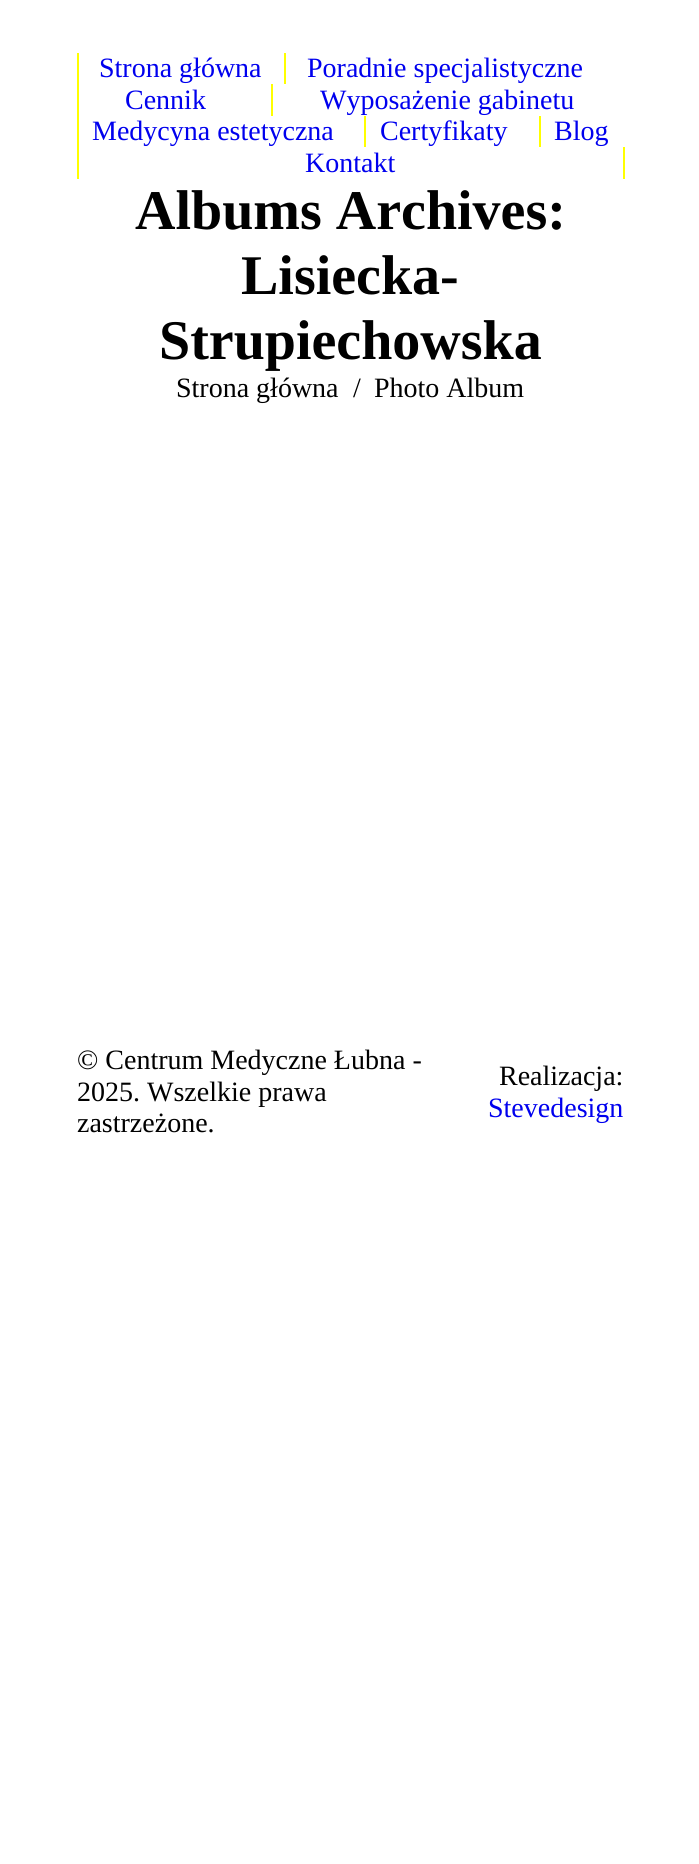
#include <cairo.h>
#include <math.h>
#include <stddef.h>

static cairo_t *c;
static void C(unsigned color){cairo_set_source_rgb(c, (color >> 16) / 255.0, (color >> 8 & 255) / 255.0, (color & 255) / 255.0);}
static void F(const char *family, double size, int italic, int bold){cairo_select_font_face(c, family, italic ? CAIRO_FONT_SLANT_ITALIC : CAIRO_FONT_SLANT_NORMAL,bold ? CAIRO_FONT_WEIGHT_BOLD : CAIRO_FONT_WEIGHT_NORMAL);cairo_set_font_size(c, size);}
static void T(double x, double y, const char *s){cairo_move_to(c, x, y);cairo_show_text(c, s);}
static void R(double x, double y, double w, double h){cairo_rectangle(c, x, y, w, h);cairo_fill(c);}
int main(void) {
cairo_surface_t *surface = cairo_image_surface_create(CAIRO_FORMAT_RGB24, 699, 1864);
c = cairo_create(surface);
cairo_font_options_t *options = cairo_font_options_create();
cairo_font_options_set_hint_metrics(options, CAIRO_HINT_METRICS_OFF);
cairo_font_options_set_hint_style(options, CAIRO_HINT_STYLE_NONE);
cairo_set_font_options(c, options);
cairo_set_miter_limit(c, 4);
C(0xffffff);
cairo_paint(c);
C(0xffff00);
R(77,53,2,126);
F("Liberation Serif",28,0,0);
C(0x0000ee);
T(99,77,"Strona główna");
C(0xffff00);
R(284,53,2,31);
C(0x0000ee);
T(307,77,"Poradnie specjalistyczne");
T(125,109,"Cennik");
C(0xffff00);
R(271,84,2,32);
C(0x0000ee);
T(320,109,"Wyposażenie gabinetu");
T(92,140,"Medycyna estetyczna");
C(0xffff00);
R(364,116,2,31);
C(0x0000ee);
T(380,140,"Certyfikaty");
C(0xffff00);
R(539,116,2,31);
C(0x0000ee);
T(554,140,"Blog");
T(305,172,"Kontakt");
C(0xffff00);
R(623,147,2,32);
F("Liberation Serif",56,0,1);
C(0x000000);
T(135,229,"Albums Archives:");
T(241,294,"Lisiecka-");
T(159,359,"Strupiechowska");
F("Liberation Serif",28,0,0);
T(176,397,"Strona główna");
T(353,397,"/");
T(374,397,"Photo Album");
T(77,1069,"© Centrum Medyczne Łubna -");
T(77,1101,"2025. Wszelkie prawa");
T(77,1132,"zastrzeżone.");
T(499,1085,"Realizacja:");
C(0x0000ee);
T(488,1117,"Stevedesign");
cairo_surface_write_to_png(surface, "o.png");
cairo_font_options_destroy(options);
cairo_destroy(c);
cairo_surface_destroy(surface);
return 0;
}
